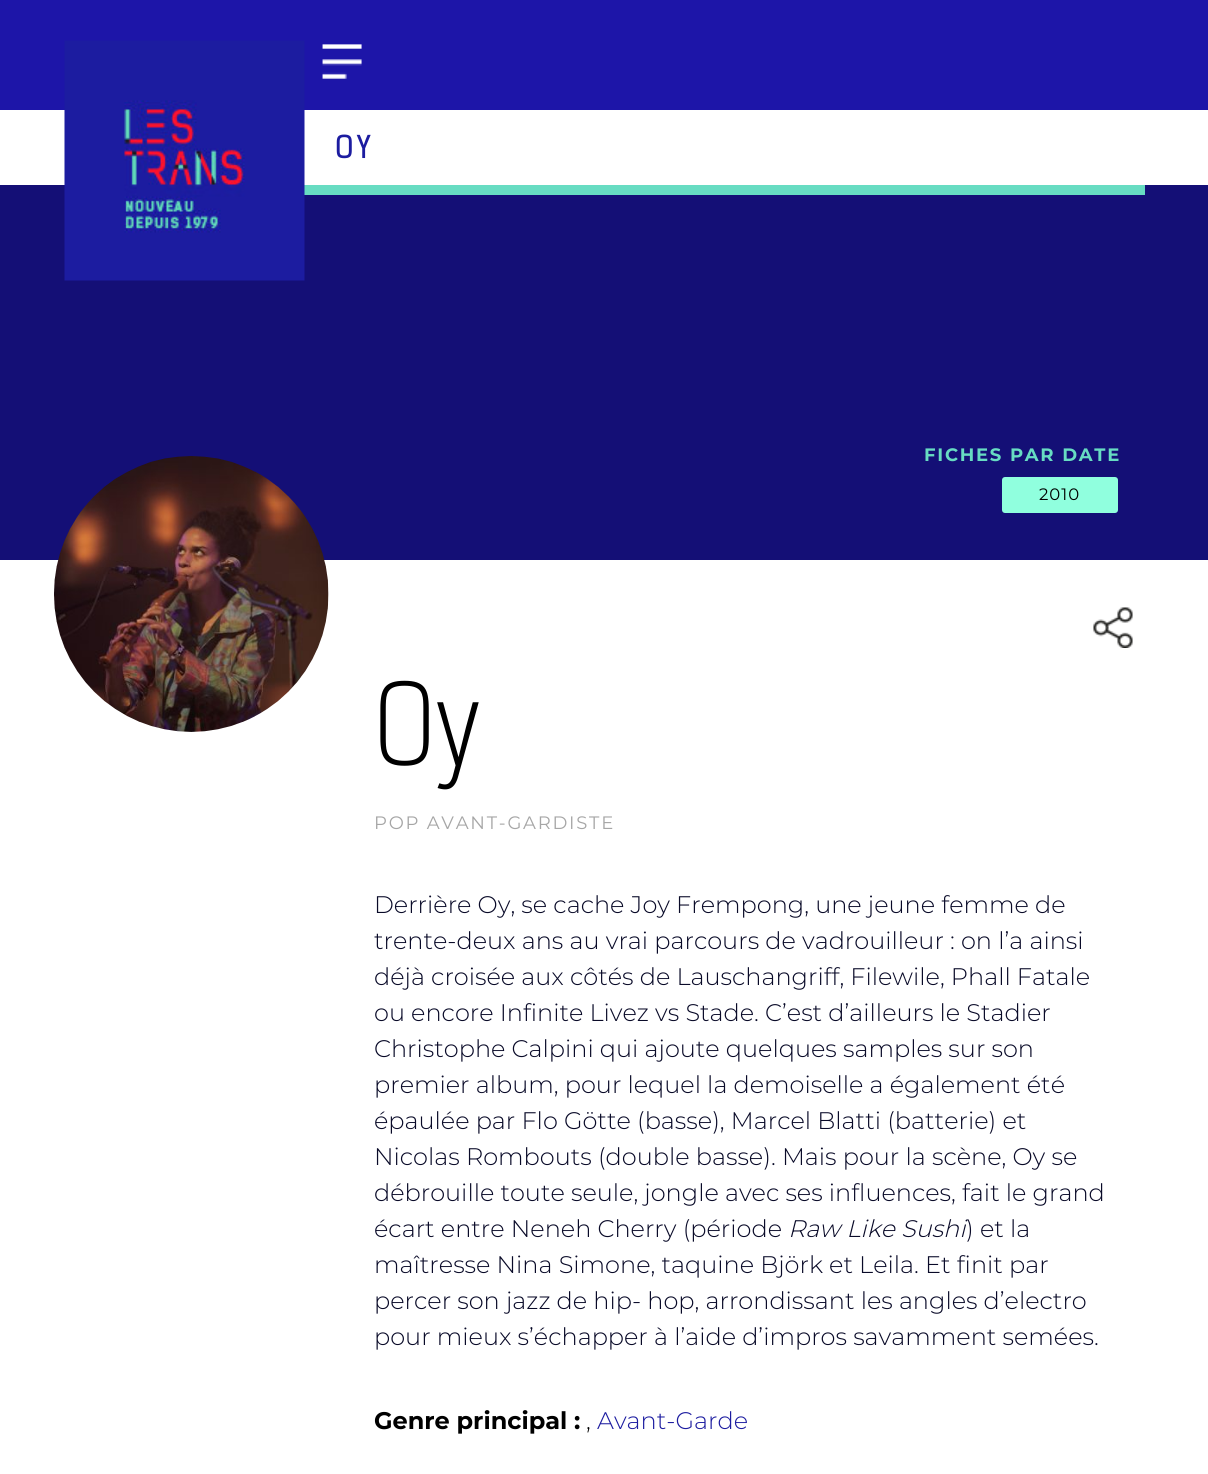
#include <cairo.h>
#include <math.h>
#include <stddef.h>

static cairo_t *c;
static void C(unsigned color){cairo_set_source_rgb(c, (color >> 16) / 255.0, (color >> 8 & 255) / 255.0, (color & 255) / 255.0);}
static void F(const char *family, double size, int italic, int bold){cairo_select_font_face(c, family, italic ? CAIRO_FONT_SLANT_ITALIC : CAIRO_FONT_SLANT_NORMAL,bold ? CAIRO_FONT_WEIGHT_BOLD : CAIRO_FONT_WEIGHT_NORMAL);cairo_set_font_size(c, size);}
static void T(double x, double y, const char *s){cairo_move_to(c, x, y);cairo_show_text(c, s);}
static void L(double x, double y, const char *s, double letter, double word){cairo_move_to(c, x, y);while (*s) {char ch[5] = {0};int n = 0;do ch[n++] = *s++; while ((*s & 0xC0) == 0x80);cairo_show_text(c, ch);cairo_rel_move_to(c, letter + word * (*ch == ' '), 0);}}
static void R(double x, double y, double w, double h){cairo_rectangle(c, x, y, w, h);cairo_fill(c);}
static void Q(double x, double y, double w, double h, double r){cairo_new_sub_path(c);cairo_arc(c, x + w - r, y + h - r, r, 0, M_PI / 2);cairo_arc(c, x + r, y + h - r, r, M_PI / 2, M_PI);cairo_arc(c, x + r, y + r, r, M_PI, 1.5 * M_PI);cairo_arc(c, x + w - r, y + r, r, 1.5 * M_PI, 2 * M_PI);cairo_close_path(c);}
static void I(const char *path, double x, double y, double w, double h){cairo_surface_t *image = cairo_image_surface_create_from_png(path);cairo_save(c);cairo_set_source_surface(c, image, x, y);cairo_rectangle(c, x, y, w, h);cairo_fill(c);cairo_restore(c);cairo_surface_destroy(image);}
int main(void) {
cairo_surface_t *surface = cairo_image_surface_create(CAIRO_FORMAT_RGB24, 1208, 1474);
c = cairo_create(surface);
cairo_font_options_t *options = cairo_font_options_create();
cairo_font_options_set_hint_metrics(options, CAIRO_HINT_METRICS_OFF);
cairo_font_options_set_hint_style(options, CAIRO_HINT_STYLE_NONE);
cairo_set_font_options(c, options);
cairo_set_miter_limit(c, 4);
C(0x1d15a8);
cairo_paint(c);
C(0xffffff);
R(0,110,1208,75);
C(0x140f76);
R(0,185,1208,375);
C(0x67dcc2);
R(304,185,841,10);
I("1.png",64,40,241,241);
I("2.png",322,44,40,35);
F("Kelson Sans",30,0,0);
C(0x1c1ca0);
L(335,158,"OY",3,0);
F("Montserrat",18,0,1);
C(0x67dcc2);
L(924,461,"FICHES PAR DATE",1.75,0);
C(0x90ffde);
Q(1002,477,116,36,3);
cairo_fill(c);
F("Montserrat",16.5,0,0);
C(0x000000);
L(1039,500,"2010",1,0);
C(0xffffff);
R(0,560,1208,914);
I("3.png",54,456,275,276);
I("4.png",1093,607,40,41);
F("Kelson Sans Light",108,0,0);
C(0x000000);
T(374,765,"Oy");
F("Montserrat",18,0,0);
C(0xa6a6a6);
L(374,829,"POP AVANT-GARDISTE",1.75,0);
F("Montserrat Light",24,0,0);
C(0x090a28);
T(374,913,"Derrière Oy, se cache Joy Frempong, une jeune femme de");
T(374,949,"trente-deux ans au vrai parcours de vadrouilleur : on l’a ainsi");
T(374,985,"déjà croisée aux côtés de Lauschangriff, Filewile, Phall Fatale");
T(374,1021,"ou encore Infinite Livez vs Stade. C’est d’ailleurs le Stadier");
T(374,1057,"Christophe Calpini qui ajoute quelques samples sur son");
T(374,1093,"premier album, pour lequel la demoiselle a également été");
T(374,1129,"épaulée par Flo Götte (basse), Marcel Blatti (batterie) et");
T(374,1165,"Nicolas Rombouts (double basse). Mais pour la scène, Oy se");
T(374,1201,"débrouille toute seule, jongle avec ses influences, fait le grand");
T(374,1237,"écart entre Neneh Cherry (période");
F("Montserrat Light",24,1,0);
T(788,1237,"Raw Like Sushi");
F("Montserrat Light",24,0,0);
T(966,1237,") et la");
T(374,1273,"maîtresse Nina Simone, taquine Björk et Leila. Et finit par");
T(374,1309,"percer son jazz de hip- hop, arrondissant les angles d’electro");
T(374,1345,"pour mieux s’échapper à l’aide d’impros savamment semées.");
F("Montserrat",24,0,1);
C(0x000000);
T(374,1429,"Genre principal :");
F("Montserrat Light",24,0,0);
T(586,1429,",");
C(0x1c1ca0);
T(597,1429,"Avant-Garde");
cairo_surface_write_to_png(surface, "o.png");
cairo_font_options_destroy(options);
cairo_destroy(c);
cairo_surface_destroy(surface);
return 0;
}
